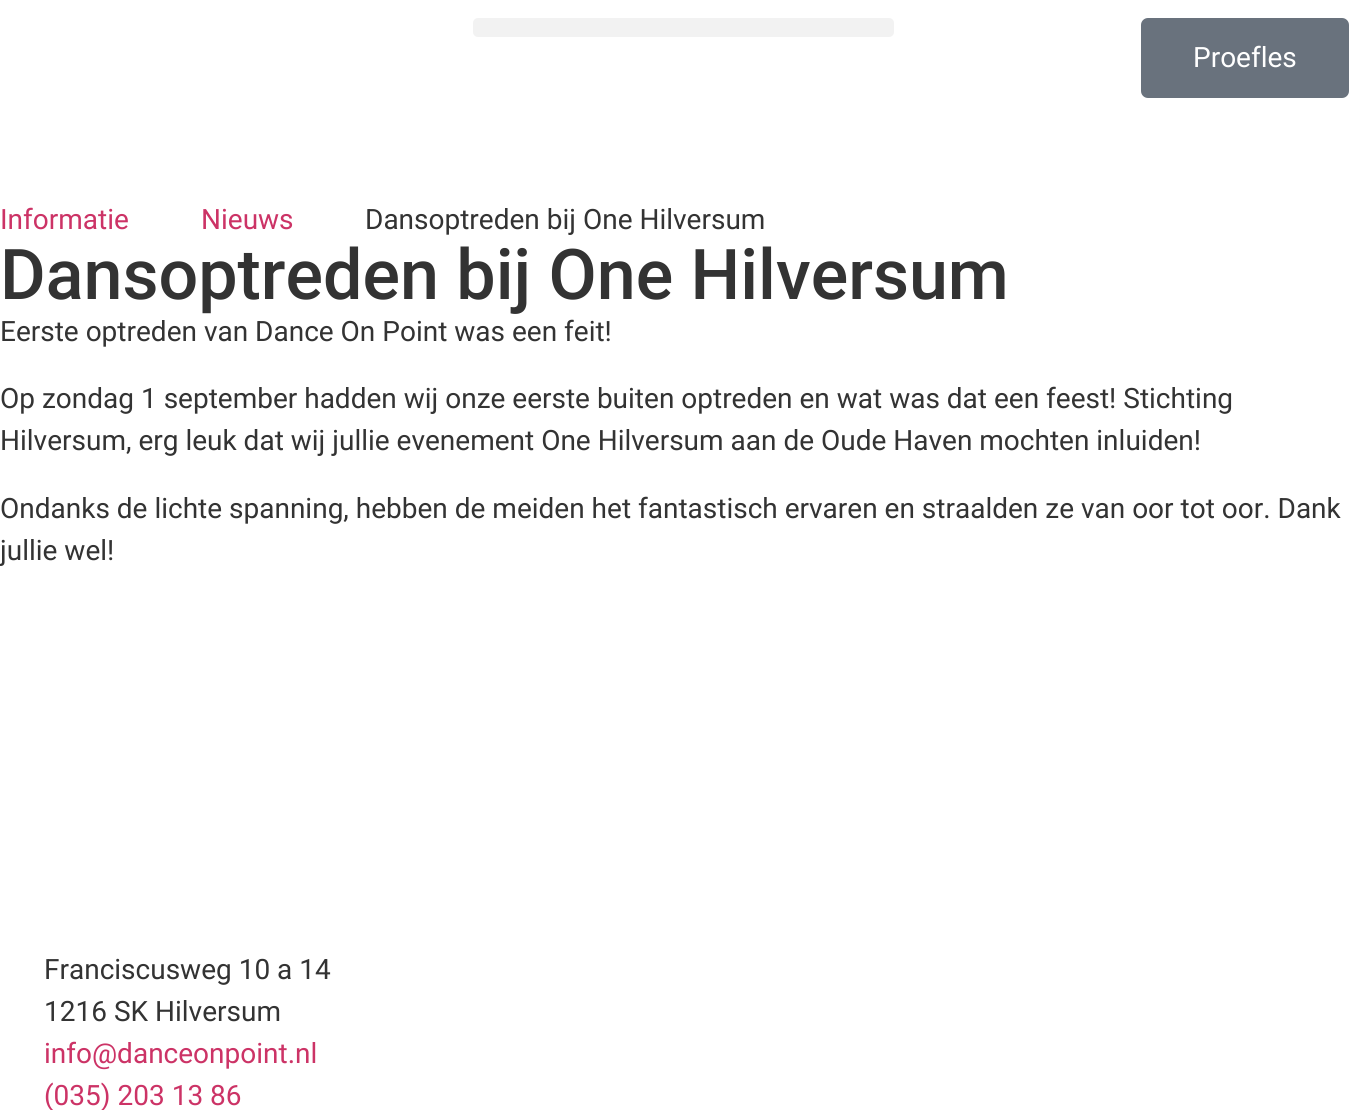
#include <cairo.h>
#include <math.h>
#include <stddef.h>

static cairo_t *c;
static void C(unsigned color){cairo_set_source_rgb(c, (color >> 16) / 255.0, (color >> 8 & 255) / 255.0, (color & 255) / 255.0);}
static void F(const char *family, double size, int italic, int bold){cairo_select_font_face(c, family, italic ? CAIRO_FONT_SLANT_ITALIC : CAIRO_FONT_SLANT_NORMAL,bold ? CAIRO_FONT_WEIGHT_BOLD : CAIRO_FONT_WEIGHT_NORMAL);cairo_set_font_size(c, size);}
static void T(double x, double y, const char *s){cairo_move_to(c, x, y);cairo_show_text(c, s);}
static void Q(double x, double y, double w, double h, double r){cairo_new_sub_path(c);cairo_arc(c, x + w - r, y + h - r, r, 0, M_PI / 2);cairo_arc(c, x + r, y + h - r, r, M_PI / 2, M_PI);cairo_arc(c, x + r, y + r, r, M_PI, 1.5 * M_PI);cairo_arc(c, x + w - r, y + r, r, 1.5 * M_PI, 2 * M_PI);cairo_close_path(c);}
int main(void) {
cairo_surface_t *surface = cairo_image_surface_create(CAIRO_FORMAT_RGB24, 1366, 1110);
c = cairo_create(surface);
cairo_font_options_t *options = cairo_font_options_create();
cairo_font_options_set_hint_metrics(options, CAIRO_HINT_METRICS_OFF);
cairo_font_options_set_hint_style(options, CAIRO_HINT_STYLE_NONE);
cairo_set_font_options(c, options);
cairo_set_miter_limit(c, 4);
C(0xffffff);
cairo_paint(c);
C(0xf2f2f2);
Q(473,18,421,19,5);
cairo_fill(c);
C(0x69727d);
Q(1141,18,208,80,7);
cairo_fill(c);
F("Roboto",28,0,0);
C(0xffffff);
T(1193,67,"Proefles");
C(0xcc3366);
T(0,229,"Informatie");
T(201,229,"Nieuws");
C(0x333333);
T(365,229,"Dansoptreden bij One Hilversum");
F("Roboto Medium",70,0,0);
T(0,299,"Dansoptreden bij One Hilversum");
F("Roboto",28,0,0);
T(0,341,"Eerste optreden van Dance On Point was een feit!");
T(0,408,"Op zondag 1 september hadden wij onze eerste buiten optreden en wat was dat een feest! Stichting");
T(0,450,"Hilversum, erg leuk dat wij jullie evenement One Hilversum aan de Oude Haven mochten inluiden!");
T(0,518,"Ondanks de lichte spanning, hebben de meiden het fantastisch ervaren en straalden ze van oor tot oor. Dank");
T(0,560,"jullie wel!");
T(44,979,"Franciscusweg 10 a 14");
T(44,1021,"1216 SK Hilversum");
C(0xcc3366);
T(44,1063,"info@danceonpoint.nl");
T(44,1105,"(035) 203 13 86");
cairo_surface_write_to_png(surface, "o.png");
cairo_font_options_destroy(options);
cairo_destroy(c);
cairo_surface_destroy(surface);
return 0;
}
